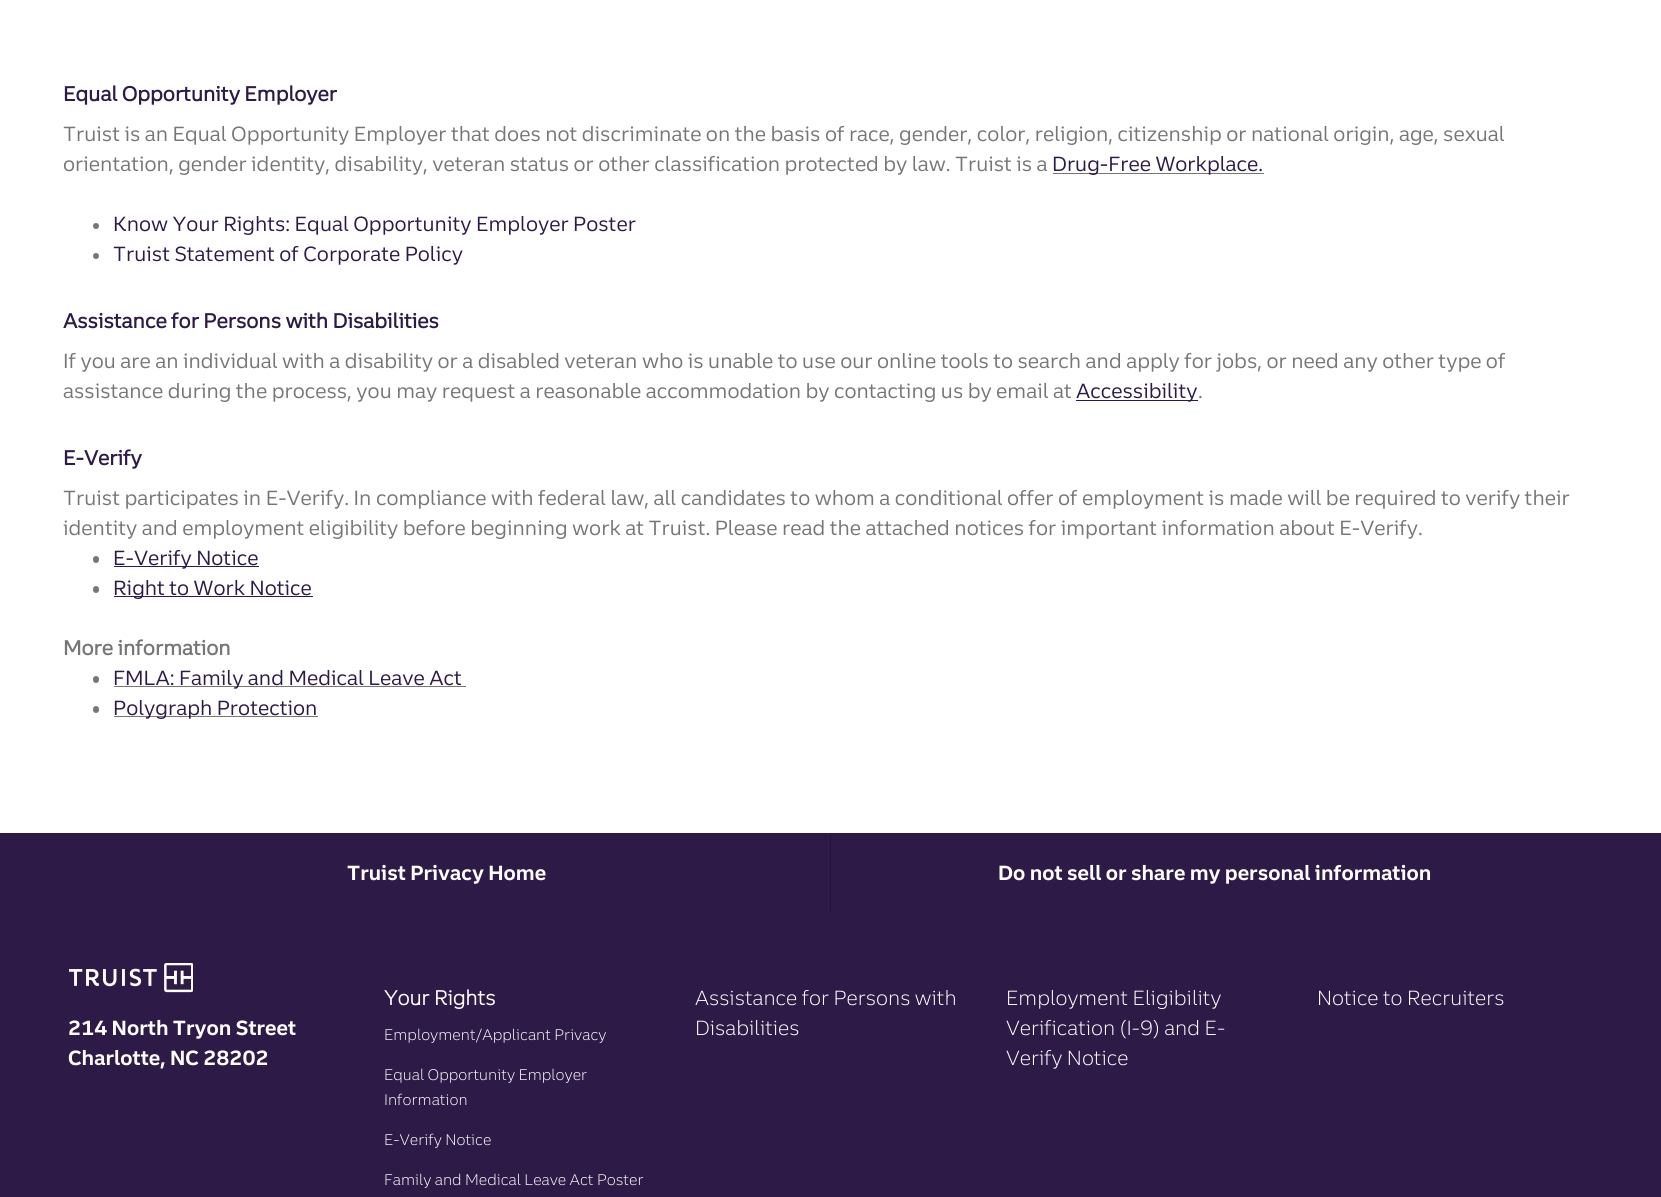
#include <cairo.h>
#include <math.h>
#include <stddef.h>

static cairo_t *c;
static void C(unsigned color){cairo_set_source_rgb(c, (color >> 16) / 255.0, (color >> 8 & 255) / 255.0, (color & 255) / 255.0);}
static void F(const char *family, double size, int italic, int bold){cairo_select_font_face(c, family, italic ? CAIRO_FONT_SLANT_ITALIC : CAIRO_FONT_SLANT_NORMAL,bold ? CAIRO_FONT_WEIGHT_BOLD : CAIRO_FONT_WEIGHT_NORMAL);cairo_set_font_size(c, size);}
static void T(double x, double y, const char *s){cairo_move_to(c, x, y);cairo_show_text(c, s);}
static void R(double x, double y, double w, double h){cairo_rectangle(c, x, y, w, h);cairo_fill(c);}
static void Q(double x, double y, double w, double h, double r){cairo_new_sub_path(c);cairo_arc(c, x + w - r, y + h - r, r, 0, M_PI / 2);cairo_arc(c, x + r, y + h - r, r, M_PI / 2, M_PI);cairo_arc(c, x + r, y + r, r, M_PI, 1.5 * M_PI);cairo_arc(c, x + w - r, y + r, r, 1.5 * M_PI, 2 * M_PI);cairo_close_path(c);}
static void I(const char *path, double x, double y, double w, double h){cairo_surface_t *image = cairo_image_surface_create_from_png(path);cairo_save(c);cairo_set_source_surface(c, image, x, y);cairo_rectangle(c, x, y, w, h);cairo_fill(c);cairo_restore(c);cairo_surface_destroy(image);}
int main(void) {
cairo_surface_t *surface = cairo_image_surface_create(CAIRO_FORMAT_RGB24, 1661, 1197);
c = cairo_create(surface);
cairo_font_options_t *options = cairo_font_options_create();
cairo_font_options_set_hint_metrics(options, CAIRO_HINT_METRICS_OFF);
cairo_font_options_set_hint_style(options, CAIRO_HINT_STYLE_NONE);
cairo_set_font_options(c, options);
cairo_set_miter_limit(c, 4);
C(0xffffff);
cairo_paint(c);
F("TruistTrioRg",20,0,1);
C(0x2e1a47);
T(63,101,"Equal Opportunity Employer");
F("TruistTrioRg",20,0,0);
C(0x767676);
T(63,141,"Truist is an Equal Opportunity Employer that does not discriminate on the basis of race, gender, color, religion, citizenship or national origin, age, sexual");
T(63,171,"orientation, gender identity, disability, veteran status or other classification protected by law. Truist is a");
R(1053,173,211,1);
C(0x2e1a47);
T(1052,171,"Drug-Free Workplace.");
C(0x767676);
cairo_new_path(c);
cairo_arc(c,96,226,3,0,2 * M_PI);
cairo_fill(c);
C(0x2e1a47);
T(113,231,"Know Your Rights: Equal Opportunity Employer Poster");
C(0x767676);
cairo_new_path(c);
cairo_arc(c,96,256,3,0,2 * M_PI);
cairo_fill(c);
C(0x2e1a47);
T(113,261,"Truist Statement of Corporate Policy");
F("TruistTrioRg",20,0,1);
T(63,328,"Assistance for Persons with Disabilities");
F("TruistTrioRg",20,0,0);
C(0x767676);
T(63,368,"If you are an individual with a disability or a disabled veteran who is unable to use our online tools to search and apply for jobs, or need any other type of");
T(63,398,"assistance during the process, you may request a reasonable accommodation by contacting us by email at");
C(0x2e1946);
R(1076,400,122,1);
C(0x2e1a47);
T(1076,398,"Accessibility");
C(0x767676);
T(1198,398,".");
F("TruistTrioRg",20,0,1);
C(0x2e1a47);
T(63,465,"E-Verify");
F("TruistTrioRg",20,0,0);
C(0x767676);
T(63,505,"Truist participates in E-Verify. In compliance with federal law, all candidates to whom a conditional offer of employment is made will be required to verify their");
T(63,535,"identity and employment eligibility before beginning work at Truist. Please read the attached notices for important information about E-Verify.");
Q(93,556,6,7,3);
cairo_fill(c);
C(0x2e1a47);
R(114,566,145,1);
T(113,565,"E-Verify Notice");
C(0x767676);
Q(93,586,6,7,3);
cairo_fill(c);
C(0x2e1a47);
R(114,596,199,1);
T(113,595,"Right to Work Notice");
F("TruistTrioRg",20,0,1);
C(0x767676);
T(63,655,"More information");
Q(93,676,6,7,3);
cairo_fill(c);
R(114,686,352,1);
F("TruistTrioRg",20,0,0);
C(0x2e1a47);
T(113,685,"FMLA: Family and Medical Leave Act");
C(0x767676);
Q(93,706,6,7,3);
cairo_fill(c);
R(114,716,204,1);
C(0x2e1a47);
T(113,715,"Polygraph Protection");
R(0,833,1661,364);
F("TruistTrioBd",20,0,1);
C(0xffffff);
T(347,880,"Truist Privacy Home");
C(0x251539);
R(830,833,1,80);
C(0xffffff);
T(998,880,"Do not sell or share my personal information");
I("1.png",69,963,124,30);
T(68,1035,"214 North Tryon Street");
T(68,1065,"Charlotte, NC 28202");
F("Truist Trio",20,0,1);
T(384,1005,"Your Rights");
F("Truist Trio Light",15,0,0);
T(384,1040,"Employment/Applicant Privacy");
T(384,1080,"Equal Opportunity Employer");
T(384,1105,"Information");
T(384,1145,"E-Verify Notice");
T(384,1185,"Family and Medical Leave Act Poster");
F("Truist Trio Light",20,0,0);
T(695,1005,"Assistance for Persons with");
T(695,1035,"Disabilities");
T(1006,1005,"Employment Eligibility");
T(1006,1035,"Verification (I-9) and E-");
T(1006,1065,"Verify Notice");
T(1317,1005,"Notice to Recruiters");
cairo_surface_write_to_png(surface, "o.png");
cairo_font_options_destroy(options);
cairo_destroy(c);
cairo_surface_destroy(surface);
return 0;
}
